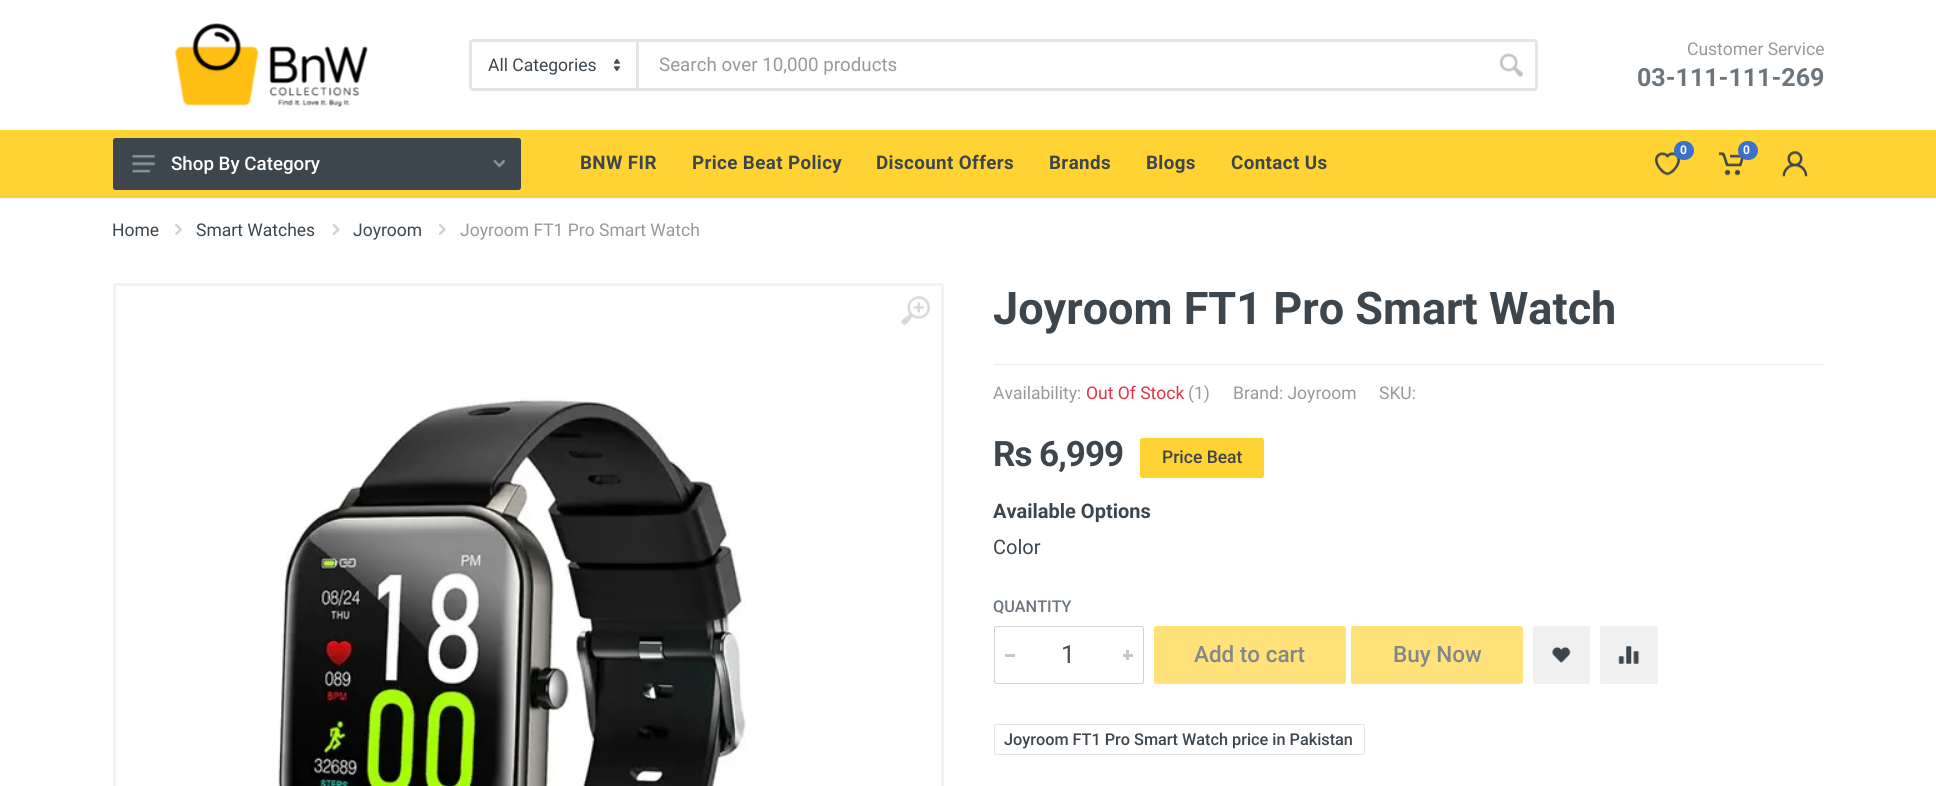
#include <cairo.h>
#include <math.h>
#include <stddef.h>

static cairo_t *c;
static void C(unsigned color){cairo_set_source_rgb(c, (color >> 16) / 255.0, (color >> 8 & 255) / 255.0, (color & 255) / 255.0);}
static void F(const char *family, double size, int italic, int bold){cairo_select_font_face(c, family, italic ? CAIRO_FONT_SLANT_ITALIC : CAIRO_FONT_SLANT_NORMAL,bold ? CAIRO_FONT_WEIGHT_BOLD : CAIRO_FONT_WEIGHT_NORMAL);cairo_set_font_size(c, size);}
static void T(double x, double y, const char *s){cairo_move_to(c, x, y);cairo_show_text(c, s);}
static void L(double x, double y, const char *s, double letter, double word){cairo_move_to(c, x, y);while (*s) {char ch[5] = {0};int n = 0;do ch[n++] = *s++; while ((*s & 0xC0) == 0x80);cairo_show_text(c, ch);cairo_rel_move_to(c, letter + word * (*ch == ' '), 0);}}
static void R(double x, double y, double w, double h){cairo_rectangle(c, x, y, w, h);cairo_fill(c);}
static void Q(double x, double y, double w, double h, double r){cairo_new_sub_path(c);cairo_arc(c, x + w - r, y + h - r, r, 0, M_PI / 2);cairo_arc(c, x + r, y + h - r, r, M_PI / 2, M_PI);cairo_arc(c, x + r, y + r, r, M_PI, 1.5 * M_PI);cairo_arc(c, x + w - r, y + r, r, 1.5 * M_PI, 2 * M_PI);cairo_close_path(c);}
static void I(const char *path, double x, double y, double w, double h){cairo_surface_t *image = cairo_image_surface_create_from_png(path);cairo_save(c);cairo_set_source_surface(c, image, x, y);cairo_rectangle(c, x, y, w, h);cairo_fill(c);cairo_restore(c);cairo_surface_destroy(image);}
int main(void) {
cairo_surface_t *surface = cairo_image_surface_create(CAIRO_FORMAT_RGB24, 1936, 786);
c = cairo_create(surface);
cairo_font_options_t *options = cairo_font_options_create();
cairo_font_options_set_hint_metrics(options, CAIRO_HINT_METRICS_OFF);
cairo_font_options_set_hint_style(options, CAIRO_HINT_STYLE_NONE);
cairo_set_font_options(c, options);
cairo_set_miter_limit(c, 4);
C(0xffffff);
cairo_paint(c);
I("1.png",175,23,193,84);
I("2.png",614,59,6,12);
C(0xe5e5e5);
R(636,41,3,48);
I("3.png",1499,53,24,24);
Q(470.5,40.5,1066,49,2.5);
cairo_set_line_width(c,3);
cairo_stroke(c);
F("Roboto",17.5,0,0);
C(0x3d464d);
T(488,71,"All Categories");
F("Roboto",18.75,0,0);
C(0x999999);
T(659,71,"Search over 10,000 products");
F("Roboto",17.5,0,0);
T(1687,55,"Customer Service");
F("Roboto",25,0,1);
C(0x6c757d);
T(1637,86,"03-111-111-269");
C(0xf5f5f5);
R(0,198,1936,1);
C(0xffd333);
R(0,130,1936,68);
C(0xf5cb31);
R(0,196,1936,1);
I("4.png",1655,152,25,24);
C(0x3b71ca);
Q(1674,141,20,19,9.5);
cairo_fill(c);
F("Roboto",12,0,1);
C(0xffffff);
T(1680,154,"0");
I("5.png",1718,152,26,24);
C(0x3b71ca);
Q(1738,141,20,19,9.5);
cairo_fill(c);
C(0xffffff);
T(1743,154,"0");
I("6.png",1782,151,26,26);
C(0x3d464d);
Q(113,138,408,52,2.5);
cairo_fill(c);
I("7.png",132,154,24,19);
F("Roboto Medium",18.75,0,0);
C(0xffffff);
T(171,170,"Shop By Category");
I("8.png",493,160,12,8);
F("Roboto",18.75,0,1);
C(0x3d464d);
L(580,169,"BNW FIR",.4,0);
L(692,169,"Price Beat Policy",.4,0);
L(876,169,"Discount Offers",.4,0);
L(1049,169,"Brands",.4,0);
L(1146,169,"Blogs",.4,0);
L(1231,169,"Contact Us",.4,0);
F("Roboto",17.5,0,0);
T(112,236,"Home");
I("9.png",175,223,7,12);
T(196,236,"Smart Watches");
I("10.png",332,223,8,12);
T(353,236,"Joyroom");
I("11.png",439,223,7,12);
C(0x999999);
T(460,236,"Joyroom FT1 Pro Smart Watch");
Q(114.5,284.5,828,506,1);
C(0xf2f2f2);
cairo_stroke(c);
I("12.png",901,296,29,30);
I("13.png",278,398,468,388);
F("Roboto",45,0,1);
C(0x3d464d);
T(993,324,"Joyroom FT1 Pro Smart Watch");
C(0xebebeb);
R(994,364,831,1);
F("Roboto",17.5,0,0);
C(0x999999);
T(993,399,"Availability:");
C(0xdc3545);
T(1086,399,"Out Of Stock");
C(0x999999);
T(1188,399,"(1)");
T(1233,399,"Brand: Joyroom");
T(1379,399,"SKU:");
F("Roboto",35,0,1);
C(0x3d464d);
L(993,466,"Rs 6,999",-1,0);
C(0xffd333);
Q(1140.5,438.5,123,39,2);
cairo_fill_preserve(c);
cairo_set_line_width(c,1);
cairo_stroke(c);
F("Roboto Medium",17.5,0,0);
C(0x3d464d);
T(1162,463,"Price Beat");
F("Roboto",20,0,1);
T(993,518,"Available Options");
F("Roboto",20,0,0);
T(993,554,"Color");
F("Roboto Medium",16.25,0,0);
C(0x6c757d);
T(993,612,"QUANTITY");
Q(994.5,626.5,149,57,2);
C(0xced4da);
cairo_stroke(c);
C(0xc5c8ca);
R(1005,654,10,3);
F("Roboto",25,0,0);
C(0x495057);
T(1061,663,"1");
C(0xc5c8ca);
R(1123,654,10,3);
R(1126,650,3,10);
C(0xffe27a);
Q(1154.5,626.5,191,57,2);
cairo_fill_preserve(c);
cairo_stroke(c);
F("Roboto Medium",22.5,0,0);
C(0x81878b);
T(1194,662,"Add to cart");
C(0xffe27a);
Q(1351.5,626.5,171,57,2);
cairo_fill_preserve(c);
cairo_stroke(c);
C(0x81878b);
T(1393,662,"Buy Now");
C(0xf0f0f0);
Q(1533.5,626.5,56,57,2);
cairo_fill_preserve(c);
cairo_stroke(c);
I("14.png",1552,647,19,16);
Q(1600.5,626.5,57,57,2);
cairo_fill_preserve(c);
cairo_stroke(c);
I("15.png",1618,646,22,18);
Q(994.5,724.5,370,30,1.5);
C(0xe5e5e5);
cairo_stroke(c);
F("Roboto Medium",16.25,0,0);
C(0x3d464d);
T(1004,745,"Joyroom FT1 Pro Smart Watch price in Pakistan");
cairo_surface_write_to_png(surface, "o.png");
cairo_font_options_destroy(options);
cairo_destroy(c);
cairo_surface_destroy(surface);
return 0;
}
